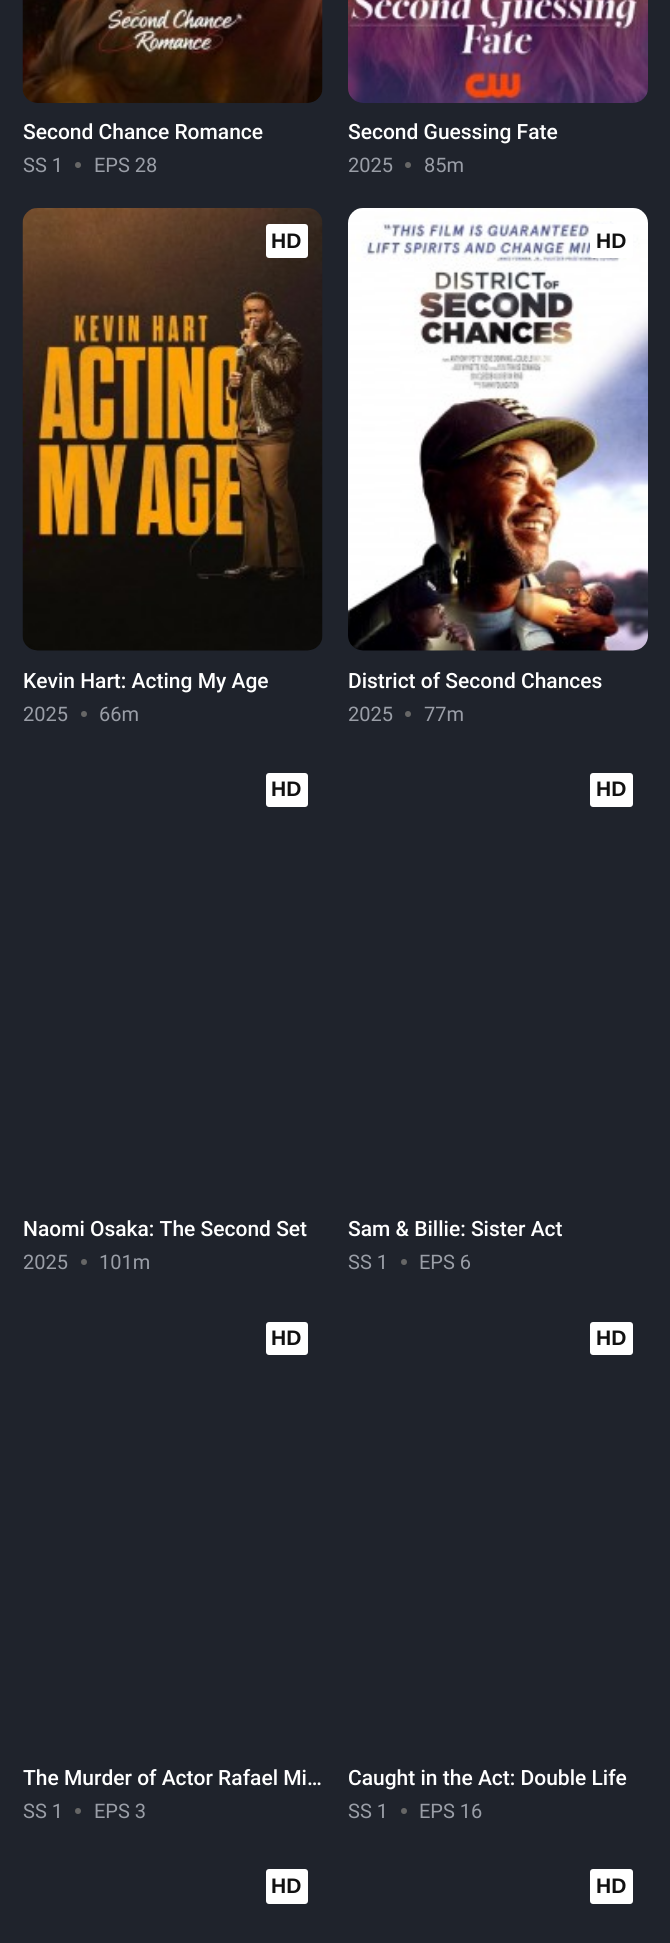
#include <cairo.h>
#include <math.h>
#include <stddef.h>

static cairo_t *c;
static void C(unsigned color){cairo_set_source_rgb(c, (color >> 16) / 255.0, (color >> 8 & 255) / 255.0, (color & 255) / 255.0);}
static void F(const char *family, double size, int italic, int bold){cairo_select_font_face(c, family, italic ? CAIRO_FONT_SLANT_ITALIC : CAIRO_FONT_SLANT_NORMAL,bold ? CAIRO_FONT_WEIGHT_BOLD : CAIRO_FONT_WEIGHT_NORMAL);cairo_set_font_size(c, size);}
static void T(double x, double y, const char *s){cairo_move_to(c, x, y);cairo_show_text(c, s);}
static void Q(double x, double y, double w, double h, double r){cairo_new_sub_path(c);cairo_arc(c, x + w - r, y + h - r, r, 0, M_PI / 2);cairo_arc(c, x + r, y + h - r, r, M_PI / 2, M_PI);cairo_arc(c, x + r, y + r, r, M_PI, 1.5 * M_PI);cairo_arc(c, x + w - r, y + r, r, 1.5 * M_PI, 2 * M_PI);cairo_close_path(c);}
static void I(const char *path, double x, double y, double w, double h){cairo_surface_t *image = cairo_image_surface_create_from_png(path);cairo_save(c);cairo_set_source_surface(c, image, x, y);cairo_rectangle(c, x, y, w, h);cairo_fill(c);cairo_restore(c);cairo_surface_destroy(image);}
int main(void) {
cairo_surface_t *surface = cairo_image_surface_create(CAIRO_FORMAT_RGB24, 670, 1943);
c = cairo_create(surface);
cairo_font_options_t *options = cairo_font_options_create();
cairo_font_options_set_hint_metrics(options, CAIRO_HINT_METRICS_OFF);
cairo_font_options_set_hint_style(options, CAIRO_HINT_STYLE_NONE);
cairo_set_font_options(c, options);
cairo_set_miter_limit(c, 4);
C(0x1f232c);
cairo_paint(c);
I("1.png",22,0,301,103);
F("Roboto Medium",21,0,0);
C(0xffffff);
T(23,139,"Second Chance Romance");
F("Roboto",20,0,0);
C(0x9a9ea7);
T(23,172,"SS 1");
C(0x666666);
cairo_new_path(c);
cairo_arc(c,78,165,3,0,2 * M_PI);
cairo_fill(c);
C(0x9a9ea7);
T(94,172,"EPS 28");
I("2.png",348,0,300,103);
F("Roboto Medium",21,0,0);
C(0xffffff);
T(348,139,"Second Guessing Fate");
F("Roboto",20,0,0);
C(0x9a9ea7);
T(348,172,"2025");
C(0x666666);
cairo_new_path(c);
cairo_arc(c,408,165,3,0,2 * M_PI);
cairo_fill(c);
C(0x9a9ea7);
T(424,172,"85m");
I("3.png",22,208,301,443);
C(0xffffff);
Q(266,224,42,34,3);
cairo_fill(c);
F("Liberation Sans",21,0,1);
C(0x111111);
T(271,248,"HD");
F("Roboto Medium",21,0,0);
C(0xffffff);
T(23,688,"Kevin Hart: Acting My Age");
F("Roboto",20,0,0);
C(0x9a9ea7);
T(23,721,"2025");
C(0x666666);
cairo_new_path(c);
cairo_arc(c,84,714,3,0,2 * M_PI);
cairo_fill(c);
C(0x9a9ea7);
T(99,721,"66m");
I("4.png",348,208,300,443);
C(0xffffff);
Q(590,224,43,34,3);
cairo_fill(c);
F("Liberation Sans",21,0,1);
C(0x111111);
T(596,248,"HD");
F("Roboto Medium",21,0,0);
C(0xffffff);
T(348,688,"District of Second Chances");
F("Roboto",20,0,0);
C(0x9a9ea7);
T(348,721,"2025");
C(0x666666);
cairo_new_path(c);
cairo_arc(c,408,714,3,0,2 * M_PI);
cairo_fill(c);
C(0x9a9ea7);
T(424,721,"77m");
C(0xffffff);
Q(266,773,42,34,3);
cairo_fill(c);
F("Liberation Sans",21,0,1);
C(0x111111);
T(271,796,"HD");
F("Roboto Medium",21,0,0);
C(0xffffff);
T(23,1236,"Naomi Osaka: The Second Set");
F("Roboto",20,0,0);
C(0x9a9ea7);
T(23,1269,"2025");
C(0x666666);
cairo_new_path(c);
cairo_arc(c,84,1262,3,0,2 * M_PI);
cairo_fill(c);
C(0x9a9ea7);
T(99,1269,"101m");
C(0xffffff);
Q(590,773,43,34,3);
cairo_fill(c);
F("Liberation Sans",21,0,1);
C(0x111111);
T(596,796,"HD");
F("Roboto Medium",21,0,0);
C(0xffffff);
T(348,1236,"Sam & Billie: Sister Act");
F("Roboto",20,0,0);
C(0x9a9ea7);
T(348,1269,"SS 1");
C(0x666666);
cairo_new_path(c);
cairo_arc(c,404,1262,3,0,2 * M_PI);
cairo_fill(c);
C(0x9a9ea7);
T(419,1269,"EPS 6");
C(0xffffff);
Q(266,1322,42,33,3);
cairo_fill(c);
F("Liberation Sans",21,0,1);
C(0x111111);
T(271,1345,"HD");
F("Roboto Medium",21,0,0);
C(0xffffff);
T(23,1785,"The Murder of Actor Rafael Mi…");
F("Roboto",20,0,0);
C(0x9a9ea7);
T(23,1818,"SS 1");
C(0x666666);
cairo_new_path(c);
cairo_arc(c,78,1811,3,0,2 * M_PI);
cairo_fill(c);
C(0x9a9ea7);
T(94,1818,"EPS 3");
C(0xffffff);
Q(590,1322,43,33,3);
cairo_fill(c);
F("Liberation Sans",21,0,1);
C(0x111111);
T(596,1345,"HD");
F("Roboto Medium",21,0,0);
C(0xffffff);
T(348,1785,"Caught in the Act: Double Life");
F("Roboto",20,0,0);
C(0x9a9ea7);
T(348,1818,"SS 1");
C(0x666666);
cairo_new_path(c);
cairo_arc(c,404,1811,3,0,2 * M_PI);
cairo_fill(c);
C(0x9a9ea7);
T(419,1818,"EPS 16");
C(0xffffff);
Q(266,1869,42,35,3);
cairo_fill(c);
F("Liberation Sans",21,0,1);
C(0x111111);
T(271,1893,"HD");
C(0xffffff);
Q(590,1869,43,35,3);
cairo_fill(c);
C(0x111111);
T(596,1893,"HD");
cairo_surface_write_to_png(surface, "o.png");
cairo_font_options_destroy(options);
cairo_destroy(c);
cairo_surface_destroy(surface);
return 0;
}
